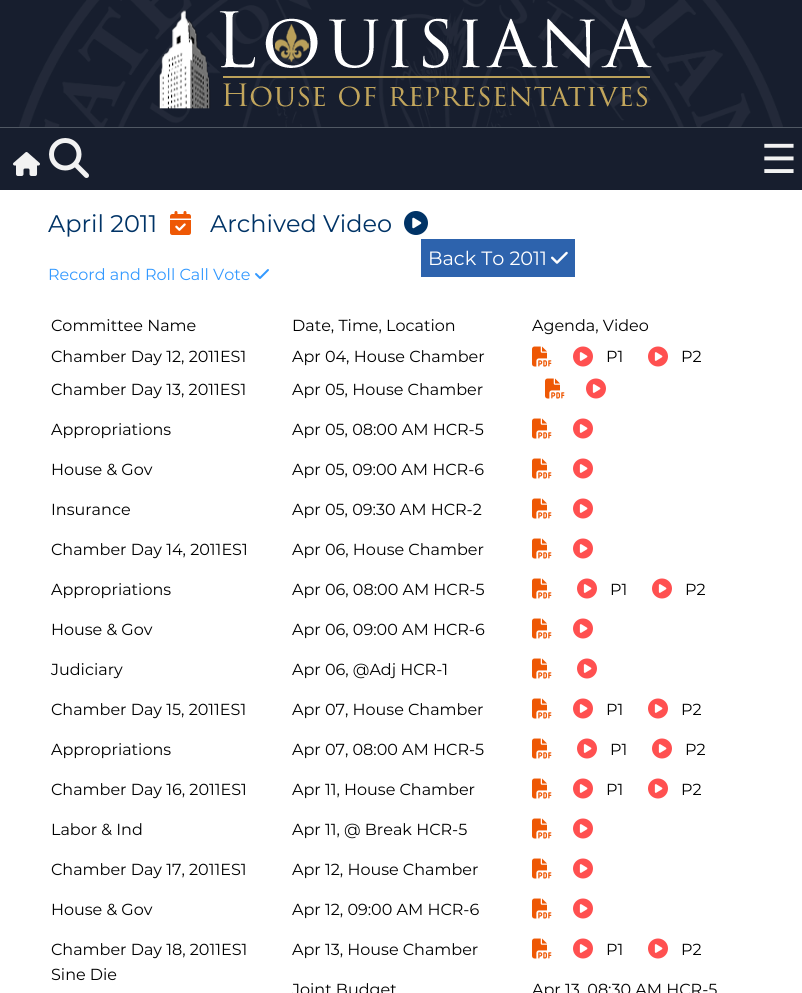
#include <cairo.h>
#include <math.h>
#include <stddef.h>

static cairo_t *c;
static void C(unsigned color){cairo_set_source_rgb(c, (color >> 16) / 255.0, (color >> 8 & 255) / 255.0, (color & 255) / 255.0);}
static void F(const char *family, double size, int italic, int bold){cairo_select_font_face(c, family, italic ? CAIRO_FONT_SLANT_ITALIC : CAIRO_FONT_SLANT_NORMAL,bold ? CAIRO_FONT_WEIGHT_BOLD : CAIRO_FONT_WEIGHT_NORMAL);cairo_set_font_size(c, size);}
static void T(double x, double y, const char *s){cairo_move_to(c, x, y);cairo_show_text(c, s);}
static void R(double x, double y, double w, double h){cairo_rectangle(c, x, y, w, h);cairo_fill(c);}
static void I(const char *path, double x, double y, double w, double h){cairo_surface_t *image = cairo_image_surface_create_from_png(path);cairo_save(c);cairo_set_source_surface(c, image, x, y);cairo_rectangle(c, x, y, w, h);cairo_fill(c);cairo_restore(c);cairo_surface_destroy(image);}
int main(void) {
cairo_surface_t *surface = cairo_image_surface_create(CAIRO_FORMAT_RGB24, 802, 993);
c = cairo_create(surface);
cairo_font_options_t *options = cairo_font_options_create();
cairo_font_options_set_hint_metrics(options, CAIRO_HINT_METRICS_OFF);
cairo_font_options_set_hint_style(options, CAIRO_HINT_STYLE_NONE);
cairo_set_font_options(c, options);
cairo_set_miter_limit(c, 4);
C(0xffffff);
cairo_paint(c);
C(0x171e2e);
R(0,0,802,127);
I("1.png",19,0,764,127);
C(0x505863);
R(0,127,802,1);
I("2.png",159,10,493,99);
C(0x171e2e);
R(0,128,802,62);
I("3.png",13,152,27,24);
I("4.png",49,138,40,40);
F("DejaVu Sans",40,0,0);
C(0xf2f2f2);
T(761,173,"☰");
F("Montserrat Thin",24,0,0);
C(0x003366);
T(48,232,"April 2011");
I("5.png",170,211,21,24);
T(210,232,"Archived Video");
I("6.png",404,211,24,24);
C(0x2d63ad);
R(421,239,154,38);
F("Montserrat Thin",19.25,0,0);
C(0xffffff);
T(428,265,"Back To 2011");
I("7.png",551,251,17,13);
F("Montserrat Thin",16,0,0);
C(0x3399ff);
T(48,280,"Record and Roll Call Vote");
I("8.png",255,269,14,10);
C(0x000000);
T(51,331,"Committee Name");
T(292,331,"Date, Time, Location");
T(532,331,"Agenda, Video");
T(51,362,"Chamber Day 12, 2011ES1");
T(292,362,"Apr 04, House Chamber");
I("9.png",532,346,20,21);
I("10.png",573,346,20,21);
T(606,362,"P1");
I("10.png",648,346,20,21);
T(681,362,"P2");
T(51,395,"Chamber Day 13, 2011ES1");
T(292,395,"Apr 05, House Chamber");
I("9.png",545,378,20,21);
I("10.png",586,378,20,21);
T(51,435,"Appropriations");
T(292,435,"Apr 05, 08:00 AM HCR-5");
I("9.png",532,418,20,21);
I("10.png",573,418,20,21);
T(51,475,"House & Gov");
T(292,475,"Apr 05, 09:00 AM HCR-6");
I("9.png",532,458,20,21);
I("10.png",573,458,20,21);
T(51,515,"Insurance");
T(292,515,"Apr 05, 09:30 AM HCR-2");
I("9.png",532,498,20,21);
I("10.png",573,498,20,21);
T(51,555,"Chamber Day 14, 2011ES1");
T(292,555,"Apr 06, House Chamber");
I("9.png",532,538,20,21);
I("10.png",573,538,20,21);
T(51,595,"Appropriations");
T(292,595,"Apr 06, 08:00 AM HCR-5");
I("9.png",532,578,20,21);
I("10.png",577,578,20,21);
T(610,595,"P1");
I("10.png",652,578,20,21);
T(685,595,"P2");
T(51,635,"House & Gov");
T(292,635,"Apr 06, 09:00 AM HCR-6");
I("9.png",532,618,20,21);
I("10.png",573,618,20,21);
T(51,675,"Judiciary");
T(292,675,"Apr 06, @Adj HCR-1");
I("9.png",532,658,20,21);
I("10.png",577,658,20,21);
T(51,715,"Chamber Day 15, 2011ES1");
T(292,715,"Apr 07, House Chamber");
I("9.png",532,698,20,21);
I("10.png",573,698,20,21);
T(606,715,"P1");
I("10.png",648,698,20,21);
T(681,715,"P2");
T(51,755,"Appropriations");
T(292,755,"Apr 07, 08:00 AM HCR-5");
I("9.png",532,738,20,21);
I("10.png",577,738,20,21);
T(610,755,"P1");
I("10.png",652,738,20,21);
T(685,755,"P2");
T(51,795,"Chamber Day 16, 2011ES1");
T(292,795,"Apr 11, House Chamber");
I("9.png",532,778,20,21);
I("10.png",573,778,20,21);
T(606,795,"P1");
I("10.png",648,778,20,21);
T(681,795,"P2");
T(51,835,"Labor & Ind");
T(292,835,"Apr 11, @ Break HCR-5");
I("9.png",532,818,20,21);
I("10.png",573,818,20,21);
T(51,875,"Chamber Day 17, 2011ES1");
T(292,875,"Apr 12, House Chamber");
I("9.png",532,858,20,21);
I("10.png",573,858,20,21);
T(51,915,"House & Gov");
T(292,915,"Apr 12, 09:00 AM HCR-6");
I("9.png",532,898,20,21);
I("10.png",573,898,20,21);
T(51,955,"Chamber Day 18, 2011ES1");
T(51,980,"Sine Die");
T(292,955,"Apr 13, House Chamber");
I("9.png",532,938,20,21);
I("10.png",573,938,20,21);
T(606,955,"P1");
I("10.png",648,938,20,21);
T(681,955,"P2");
T(292,995,"Joint Budget");
T(532,995,"Apr 13, 08:30 AM HCR-5");
cairo_surface_write_to_png(surface, "o.png");
cairo_font_options_destroy(options);
cairo_destroy(c);
cairo_surface_destroy(surface);
return 0;
}
